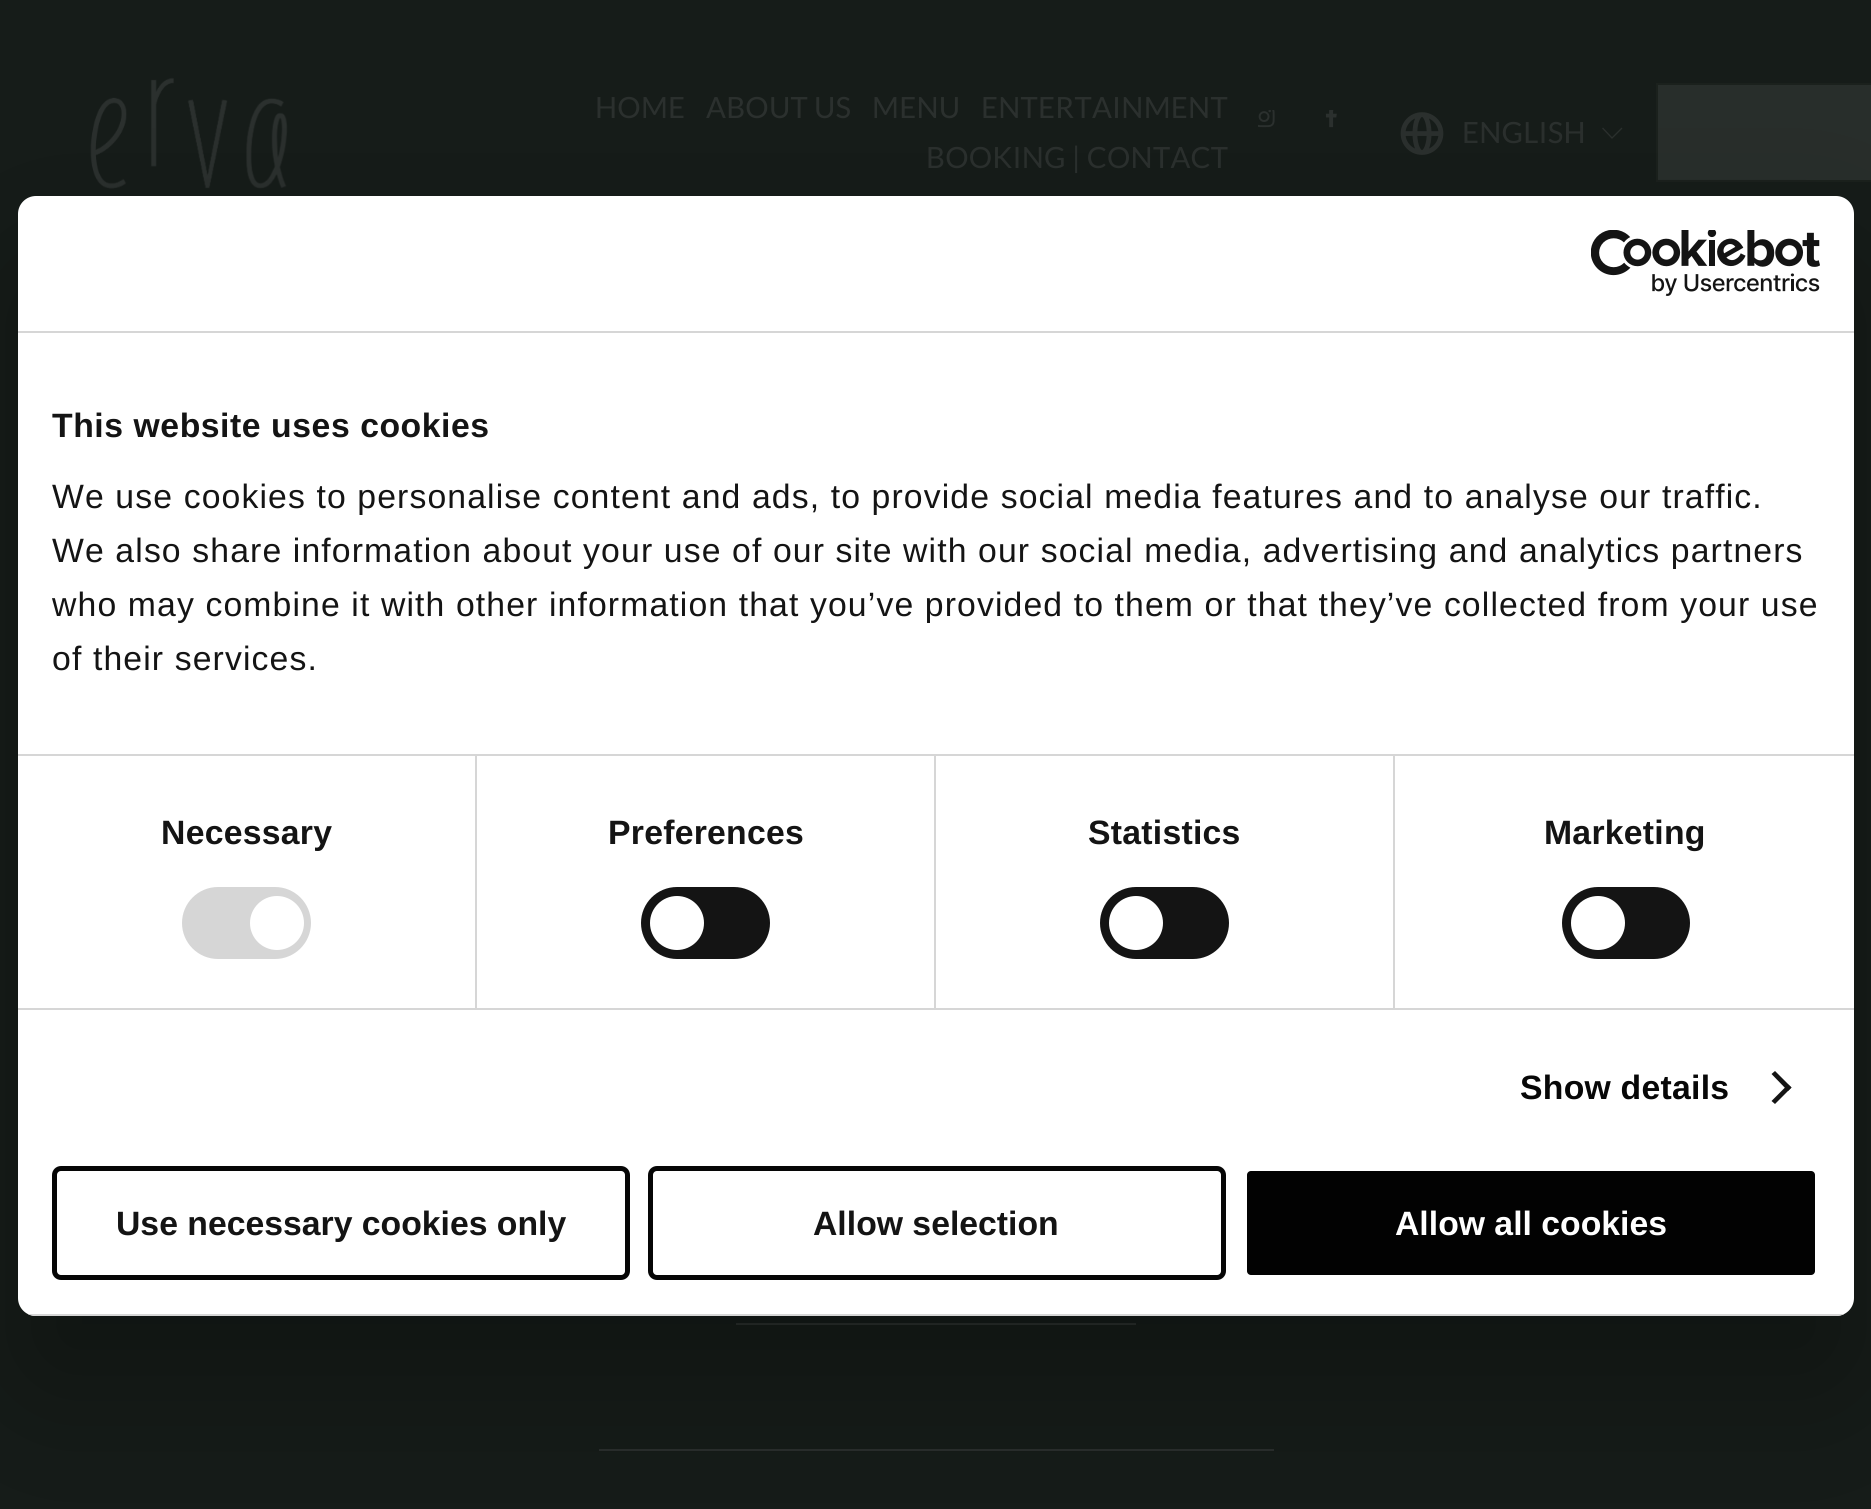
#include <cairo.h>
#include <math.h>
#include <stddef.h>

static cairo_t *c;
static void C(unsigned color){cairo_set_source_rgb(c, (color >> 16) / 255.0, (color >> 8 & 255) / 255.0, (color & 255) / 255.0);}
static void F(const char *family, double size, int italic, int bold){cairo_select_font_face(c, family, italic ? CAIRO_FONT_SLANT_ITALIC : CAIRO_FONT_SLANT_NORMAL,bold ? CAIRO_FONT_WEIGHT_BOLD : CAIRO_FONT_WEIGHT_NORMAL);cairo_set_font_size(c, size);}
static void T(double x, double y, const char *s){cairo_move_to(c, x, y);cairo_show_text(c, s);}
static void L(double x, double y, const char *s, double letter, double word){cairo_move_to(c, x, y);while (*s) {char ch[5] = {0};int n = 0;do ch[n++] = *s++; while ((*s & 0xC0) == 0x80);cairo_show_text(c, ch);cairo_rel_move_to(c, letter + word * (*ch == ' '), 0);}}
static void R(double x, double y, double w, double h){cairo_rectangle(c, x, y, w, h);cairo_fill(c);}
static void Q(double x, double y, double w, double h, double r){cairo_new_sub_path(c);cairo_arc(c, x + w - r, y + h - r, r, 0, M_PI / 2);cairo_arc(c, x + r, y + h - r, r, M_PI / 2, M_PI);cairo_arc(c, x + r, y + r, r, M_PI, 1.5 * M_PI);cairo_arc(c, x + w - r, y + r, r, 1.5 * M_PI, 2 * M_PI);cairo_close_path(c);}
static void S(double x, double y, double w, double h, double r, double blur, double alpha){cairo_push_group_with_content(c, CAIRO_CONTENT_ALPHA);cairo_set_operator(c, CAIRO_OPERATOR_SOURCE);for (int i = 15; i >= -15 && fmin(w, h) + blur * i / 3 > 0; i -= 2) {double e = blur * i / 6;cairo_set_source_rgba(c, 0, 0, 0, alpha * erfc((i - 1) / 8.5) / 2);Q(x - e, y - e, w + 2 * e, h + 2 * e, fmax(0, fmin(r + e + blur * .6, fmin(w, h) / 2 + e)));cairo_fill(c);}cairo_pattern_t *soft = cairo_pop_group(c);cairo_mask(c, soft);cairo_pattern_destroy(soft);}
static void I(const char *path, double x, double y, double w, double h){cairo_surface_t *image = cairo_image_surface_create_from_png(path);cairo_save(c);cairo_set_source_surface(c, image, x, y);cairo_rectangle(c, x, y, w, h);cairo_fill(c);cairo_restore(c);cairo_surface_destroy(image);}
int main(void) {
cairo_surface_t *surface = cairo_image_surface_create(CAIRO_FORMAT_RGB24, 1871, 1509);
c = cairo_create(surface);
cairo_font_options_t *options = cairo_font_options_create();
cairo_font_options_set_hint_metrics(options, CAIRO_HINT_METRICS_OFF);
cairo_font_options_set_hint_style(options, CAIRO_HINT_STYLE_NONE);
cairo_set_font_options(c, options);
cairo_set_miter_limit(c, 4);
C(0x161c19);
cairo_paint(c);
I("1.png",90,77,198,112);
F("Lato",29.25,0,0);
C(0x2b302e);
L(595,118,"HOME",.25,0);
L(706,118,"ABOUT US",.25,0);
L(872,118,"MENU",.25,0);
L(981,118,"ENTERTAINMENT",.25,0);
L(926,168,"BOOKING | CONTACT",.25,0);
I("2.png",1258,110,17,18);
I("3.png",1325,110,12,18);
C(0x282e2b);
cairo_rectangle(c,1657,84,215,97);
cairo_fill_preserve(c);
C(0x1b211d);
cairo_stroke(c);
I("4.png",1400,112,44,43);
C(0x2b302e);
L(1462,143,"ENGLISH",.25,0);
cairo_new_path(c);
cairo_move_to(c,1621.5,128.5);
cairo_line_to(c,1612,138);
cairo_line_to(c,1603,128.5);
cairo_set_line_width(c,1.3);
cairo_set_line_cap(c,CAIRO_LINE_CAP_SQUARE);
cairo_stroke(c);
R(736,1323,400,2);
R(599,1449,675,2);
C(0x000000);
S(18,268,1836,1120,18,76.5,.3);
C(0xffffff);
Q(18,196,1836,1120,18);
cairo_fill(c);
C(0xd6d6d6);
R(18,331,1836,2);
I("5.png",1591,230,229,66);
R(18,754,1836,2);
F("Liberation Sans",33.75,0,1);
C(0x141414);
L(52,437,"This website uses cookies",.55,0);
F("Liberation Sans",33.75,0,0);
L(52,508,"We use cookies to personalise content and ads, to provide social media features and to analyse our traffic.",1.12,0);
L(52,562,"We also share information about your use of our site with our social media, advertising and analytics partners",1.12,0);
L(52,616,"who may combine it with other information that you’ve provided to them or that they’ve collected from your use",1.12,0);
L(52,670,"of their services.",1.12,0);
C(0xd6d6d6);
R(18,1008,1836,2);
R(475,756,2,252);
F("Liberation Sans",33.75,0,1);
C(0x141414);
L(161,844,"Necessary",.25,0);
C(0xd6d6d6);
Q(182,887,129,72,36);
cairo_fill(c);
C(0xffffff);
cairo_arc(c,277,923,27,0,2 * M_PI);
cairo_fill(c);
C(0xd6d6d6);
R(934,756,2,252);
C(0x141414);
L(608,844,"Preferences",.25,0);
Q(641,887,129,72,36);
cairo_fill(c);
C(0xffffff);
cairo_arc(c,677,923,27,0,2 * M_PI);
cairo_fill(c);
C(0xd6d6d6);
R(1393,756,2,252);
C(0x141414);
L(1088,844,"Statistics",.25,0);
Q(1100,887,129,72,36);
cairo_fill(c);
C(0xffffff);
cairo_arc(c,1136,923,27,0,2 * M_PI);
cairo_fill(c);
C(0x141414);
L(1544,844,"Marketing",.25,0);
Q(1562,887,128,72,36);
cairo_fill(c);
C(0xffffff);
cairo_arc(c,1598,923,27,0,2 * M_PI);
cairo_fill(c);
C(0x070707);
L(1520,1099,"Show details",.25,0);
C(0x141414);
cairo_new_path(c);
cairo_move_to(c,1775,1071);
cairo_line_to(c,1791.5,1087.5);
cairo_line_to(c,1788,1091);
cairo_line_to(c,1771.5,1074);
cairo_close_path(c);
cairo_fill(c);
cairo_new_path(c);
cairo_move_to(c,1788,1084.5);
cairo_line_to(c,1791.5,1087.5);
cairo_line_to(c,1775,1104);
cairo_line_to(c,1771.5,1101);
cairo_close_path(c);
cairo_fill(c);
cairo_save(c);
Q(18,196,1836,1120,18);
cairo_clip(c);
C(0xd6d6d6);
R(28,1314,1816,2);
cairo_restore(c);
Q(54.5,1168.5,573,109,6.5);
C(0x060606);
cairo_set_line_width(c,5);
cairo_set_line_cap(c,CAIRO_LINE_CAP_BUTT);
cairo_stroke(c);
C(0x141414);
T(116,1235,"Use necessary cookies only");
Q(650.5,1168.5,573,109,6.5);
C(0x060606);
cairo_stroke(c);
C(0x141414);
T(813,1235,"Allow selection");
C(0x020202);
Q(1244.5,1168.5,573,109,6.5);
cairo_fill_preserve(c);
C(0xffffff);
cairo_stroke(c);
T(1395,1235,"Allow all cookies");
cairo_surface_write_to_png(surface, "o.png");
cairo_font_options_destroy(options);
cairo_destroy(c);
cairo_surface_destroy(surface);
return 0;
}
